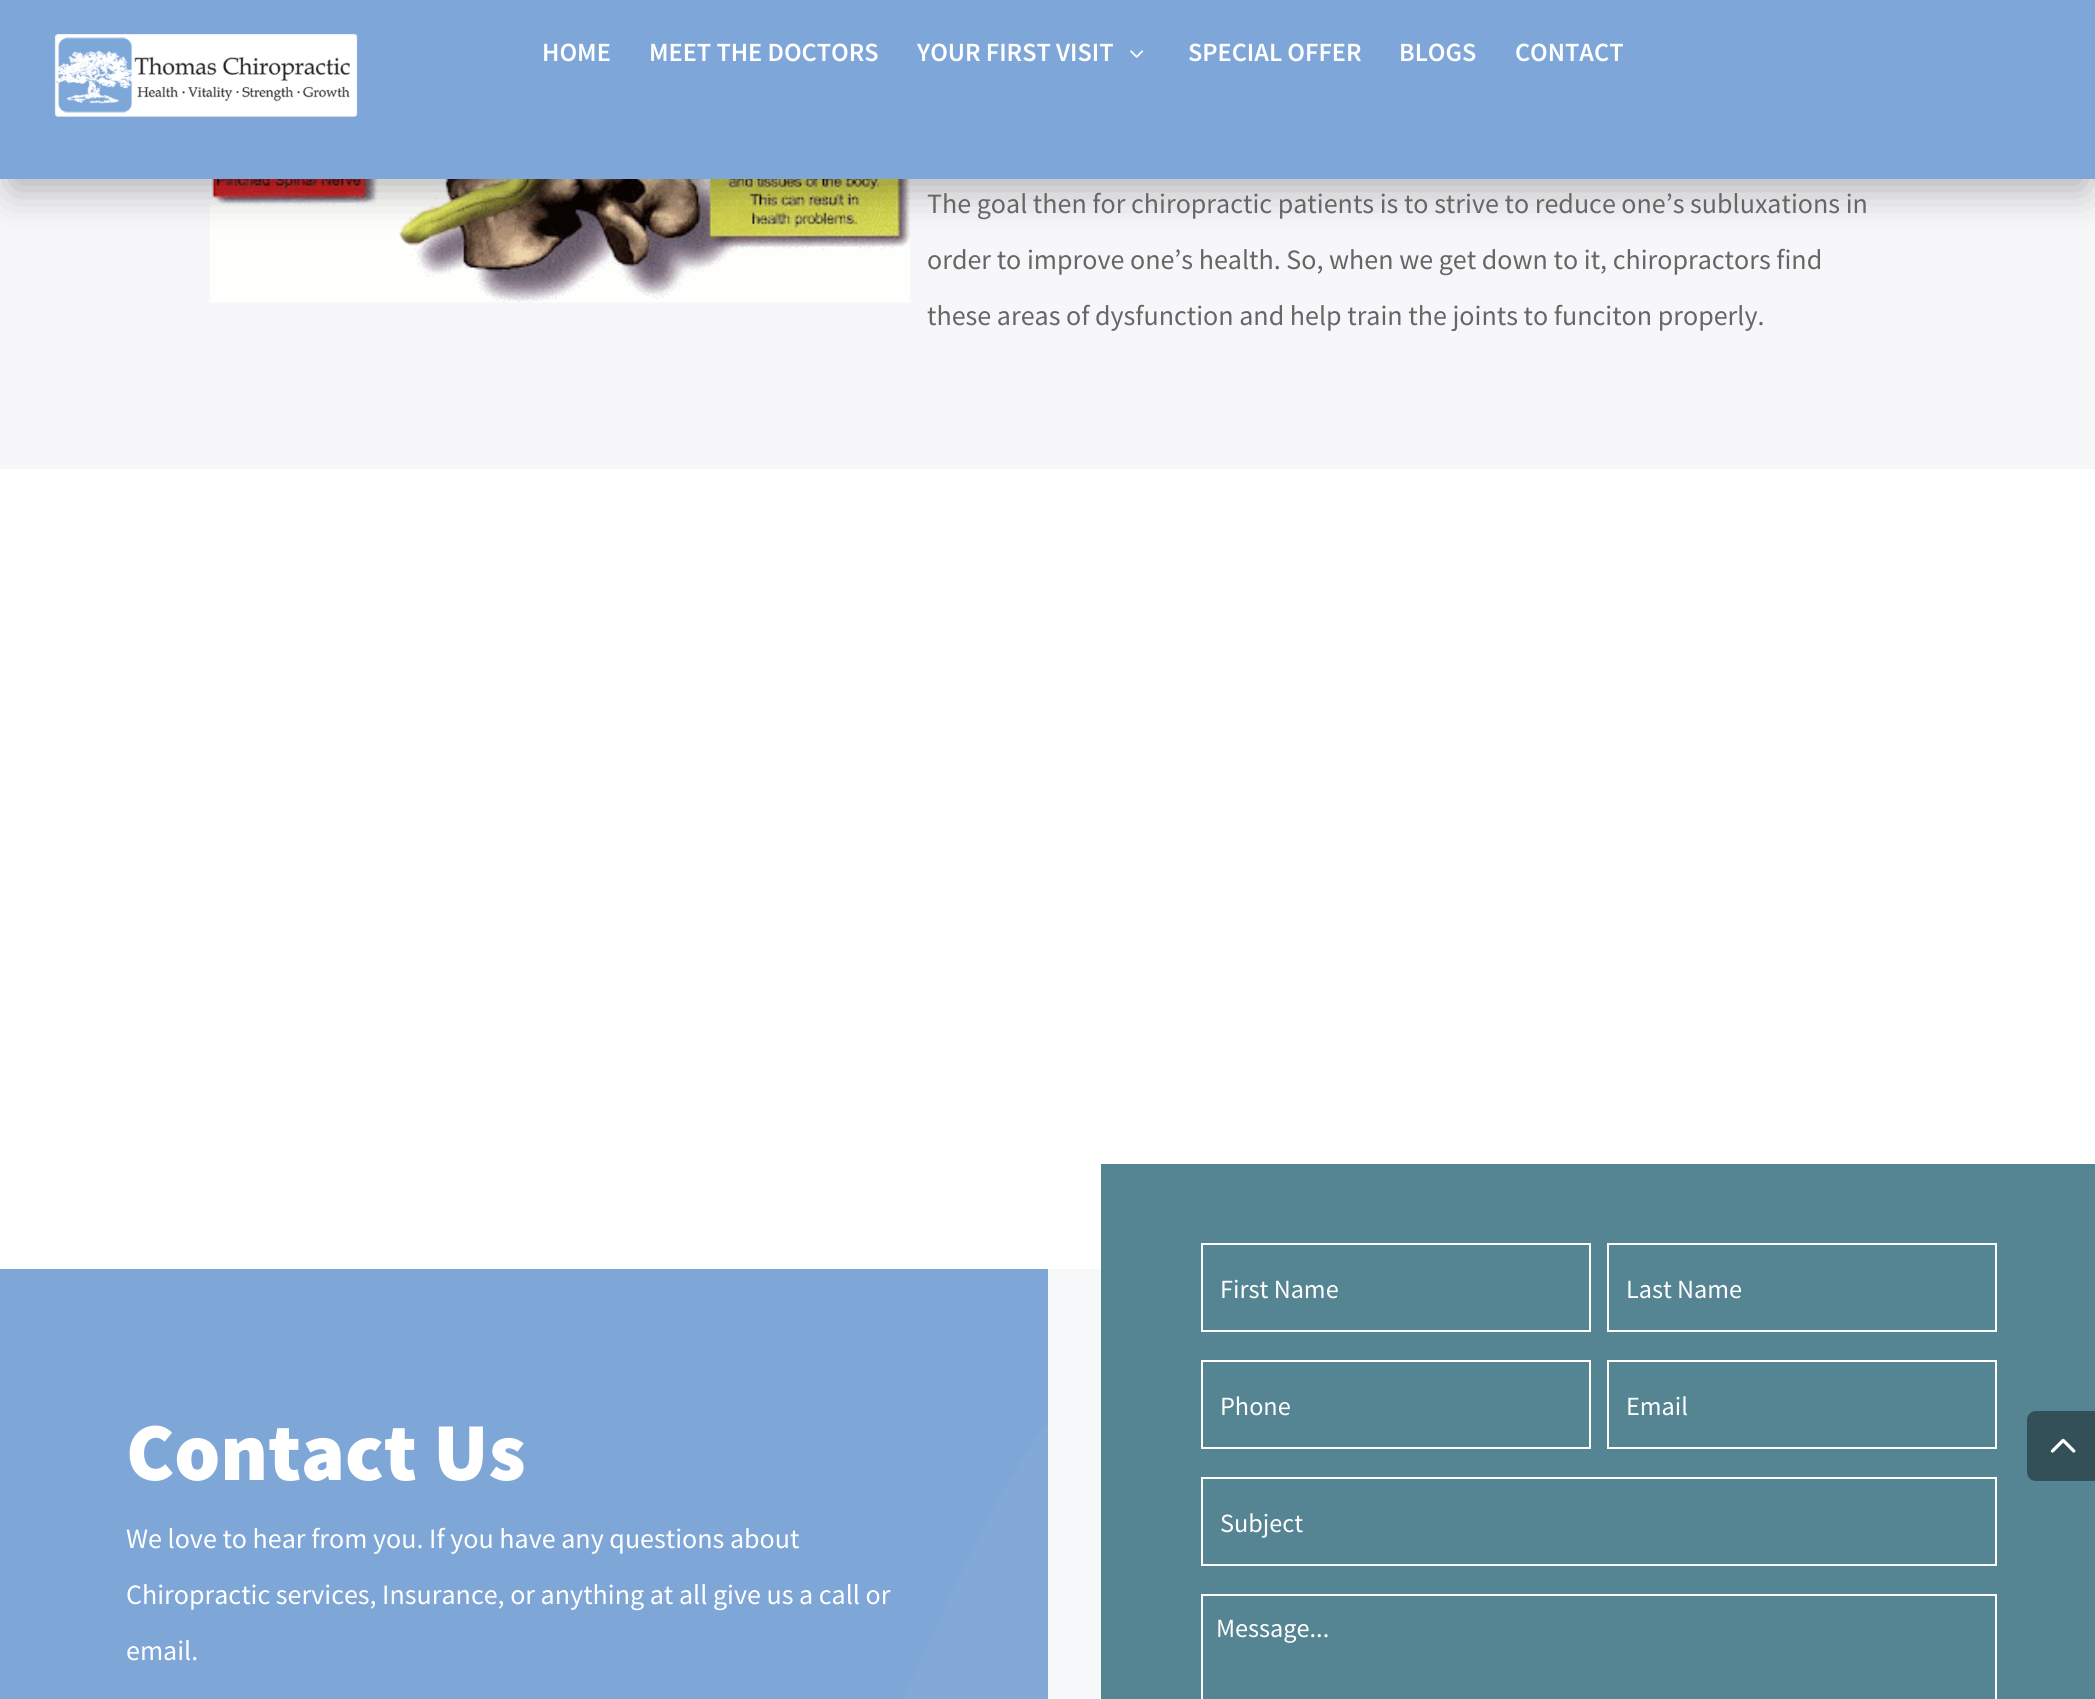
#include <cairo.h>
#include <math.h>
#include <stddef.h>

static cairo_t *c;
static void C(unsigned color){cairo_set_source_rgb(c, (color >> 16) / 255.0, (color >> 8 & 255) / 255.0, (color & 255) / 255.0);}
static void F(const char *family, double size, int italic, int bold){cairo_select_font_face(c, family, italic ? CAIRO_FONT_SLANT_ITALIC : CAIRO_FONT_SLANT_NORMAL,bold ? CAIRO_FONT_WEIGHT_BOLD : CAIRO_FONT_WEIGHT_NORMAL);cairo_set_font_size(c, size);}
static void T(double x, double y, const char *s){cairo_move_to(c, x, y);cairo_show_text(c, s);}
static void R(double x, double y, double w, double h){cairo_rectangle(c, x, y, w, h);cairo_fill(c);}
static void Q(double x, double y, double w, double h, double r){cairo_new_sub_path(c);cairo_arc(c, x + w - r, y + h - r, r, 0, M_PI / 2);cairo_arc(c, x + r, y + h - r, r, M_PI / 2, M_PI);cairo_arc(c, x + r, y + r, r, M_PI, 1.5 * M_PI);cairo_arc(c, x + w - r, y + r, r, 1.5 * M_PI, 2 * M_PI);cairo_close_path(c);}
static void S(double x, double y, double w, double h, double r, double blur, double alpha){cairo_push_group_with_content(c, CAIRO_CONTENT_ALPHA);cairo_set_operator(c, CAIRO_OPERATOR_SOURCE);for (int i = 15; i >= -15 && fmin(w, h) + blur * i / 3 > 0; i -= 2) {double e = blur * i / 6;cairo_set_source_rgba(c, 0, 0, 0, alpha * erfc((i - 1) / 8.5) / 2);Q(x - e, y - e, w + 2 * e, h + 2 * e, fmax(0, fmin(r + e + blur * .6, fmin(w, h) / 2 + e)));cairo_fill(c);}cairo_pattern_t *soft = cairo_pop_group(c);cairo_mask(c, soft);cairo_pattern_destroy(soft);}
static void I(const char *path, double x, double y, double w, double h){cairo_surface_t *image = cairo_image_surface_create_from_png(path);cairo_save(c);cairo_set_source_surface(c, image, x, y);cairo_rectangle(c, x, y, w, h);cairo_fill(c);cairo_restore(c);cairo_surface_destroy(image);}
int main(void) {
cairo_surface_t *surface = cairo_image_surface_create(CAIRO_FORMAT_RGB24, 2095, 1699);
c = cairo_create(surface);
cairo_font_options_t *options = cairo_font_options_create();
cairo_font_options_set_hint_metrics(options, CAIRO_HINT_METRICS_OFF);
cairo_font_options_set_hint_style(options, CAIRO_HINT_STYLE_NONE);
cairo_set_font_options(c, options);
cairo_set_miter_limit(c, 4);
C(0xffffff);
cairo_paint(c);
C(0xf7f7fa);
R(0,179,2095,290);
I("3.png",210,179,700,124);
C(0x000000);
S(11,32,2075,157,0,21,.3);
C(0x7ea6d9);
R(0,0,2095,179);
I("1.png",54,34,304,83);
F("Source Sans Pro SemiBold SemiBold",26.25,0,0);
C(0xffffff);
T(542,61,"HOME");
T(649,61,"MEET THE DOCTORS");
T(917,61,"YOUR FIRST VISIT");
I("2.png",1130,50,14,8);
T(1188,61,"SPECIAL OFFER");
T(1399,61,"BLOGS");
T(1515,61,"CONTACT");
F("Source Sans Pro",28,0,0);
C(0x666666);
T(927,213,"The goal then for chiropractic patients is to strive to reduce one’s subluxations in");
T(927,269,"order to improve one’s health. So, when we get down to it, chiropractors find");
T(927,325,"these areas of dysfunction and help train the joints to funciton properly.");
C(0xf6f8fa);
R(1048,1269,53,430);
C(0x7ea6d7);
R(0,1269,1048,430);
I("4.png",903,1422,145,277);
F("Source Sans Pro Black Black",82.25,0,0);
C(0xffffff);
T(126,1480,"Contact Us");
F("Source Sans Pro",28,0,0);
T(126,1548,"We love to hear from you. If you have any questions about");
T(126,1604,"Chiropractic services, Insurance, or anything at all give us a call or");
T(126,1660,"email.");
C(0x558493);
R(1101,1164,994,535);
cairo_rectangle(c,1202,1244,388,87);
C(0xffffff);
cairo_stroke(c);
F("Source Sans Pro",26.25,0,0);
T(1220,1298,"First Name");
cairo_rectangle(c,1608,1244,388,87);
cairo_stroke(c);
T(1626,1298,"Last Name");
cairo_rectangle(c,1202,1361,388,87);
cairo_stroke(c);
T(1220,1415,"Phone");
cairo_rectangle(c,1608,1361,388,87);
cairo_stroke(c);
T(1626,1415,"Email");
cairo_rectangle(c,1202,1478,794,87);
cairo_stroke(c);
T(1220,1532,"Subject");
cairo_rectangle(c,1202,1595,794,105);
cairo_stroke(c);
T(1216,1637,"Message...");
C(0x334f58);
cairo_new_path(c);
cairo_move_to(c,2036,1411);
cairo_line_to(c,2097,1411);
cairo_line_to(c,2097,1481);
cairo_line_to(c,2036,1481);
cairo_curve_to(c,2031,1481,2027,1477,2027,1472);
cairo_line_to(c,2027,1420);
cairo_curve_to(c,2027,1415,2031,1411,2036,1411);
cairo_close_path(c);
cairo_fill(c);
I("5.png",2050,1438,26,15);
cairo_surface_write_to_png(surface, "o.png");
cairo_font_options_destroy(options);
cairo_destroy(c);
cairo_surface_destroy(surface);
return 0;
}
